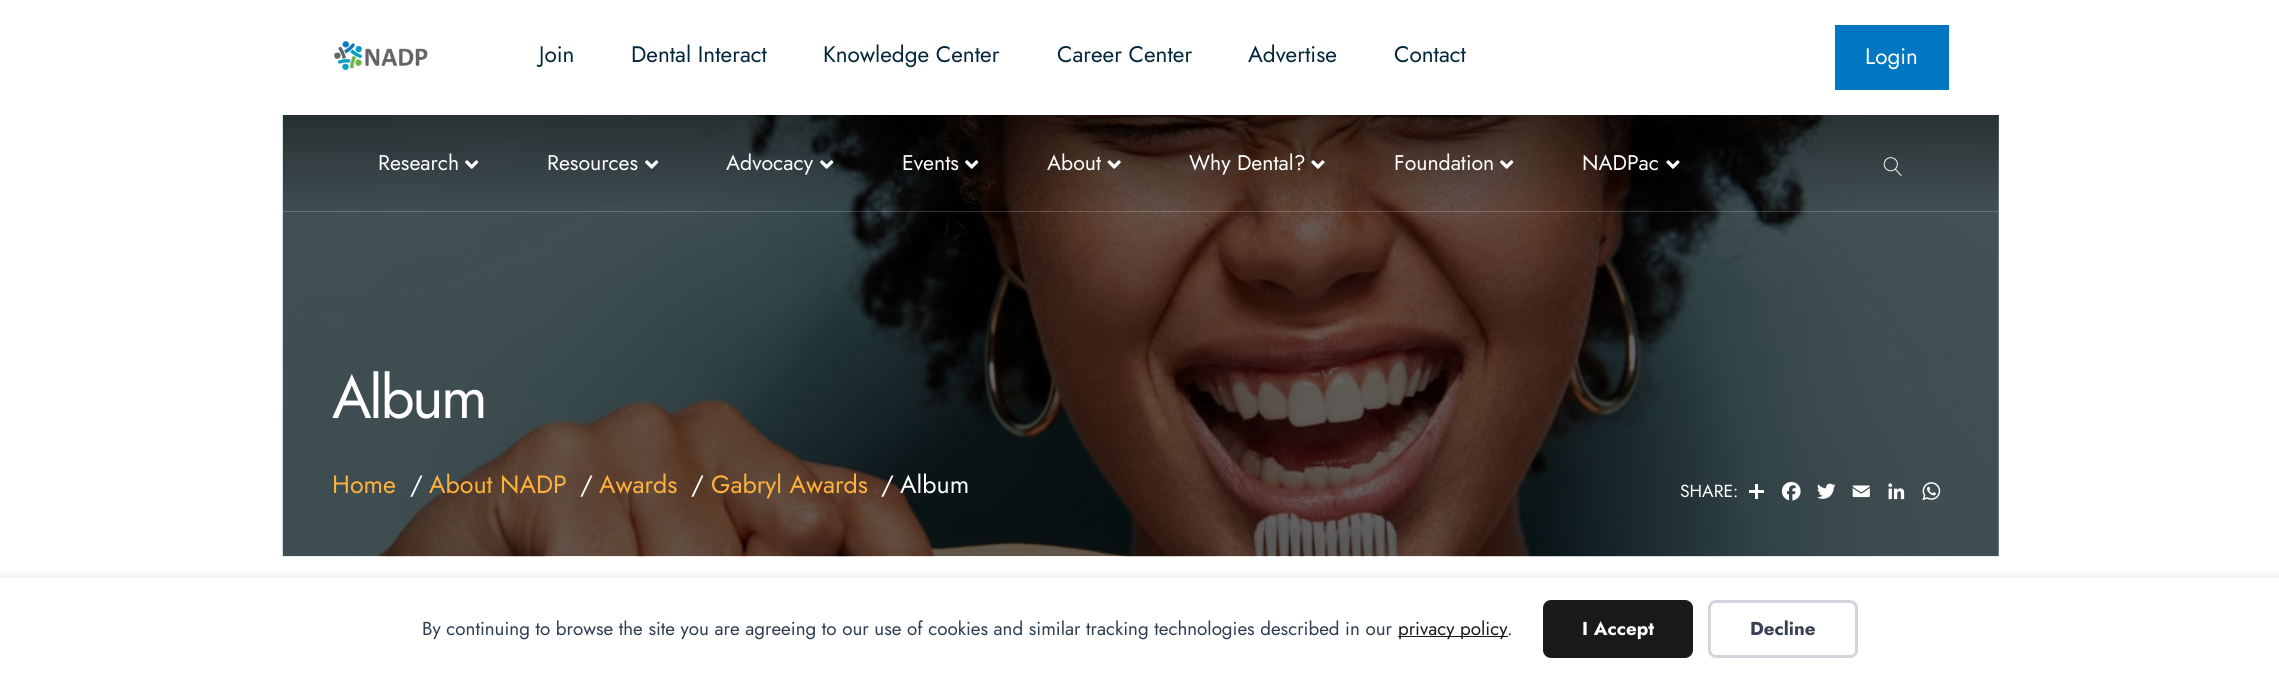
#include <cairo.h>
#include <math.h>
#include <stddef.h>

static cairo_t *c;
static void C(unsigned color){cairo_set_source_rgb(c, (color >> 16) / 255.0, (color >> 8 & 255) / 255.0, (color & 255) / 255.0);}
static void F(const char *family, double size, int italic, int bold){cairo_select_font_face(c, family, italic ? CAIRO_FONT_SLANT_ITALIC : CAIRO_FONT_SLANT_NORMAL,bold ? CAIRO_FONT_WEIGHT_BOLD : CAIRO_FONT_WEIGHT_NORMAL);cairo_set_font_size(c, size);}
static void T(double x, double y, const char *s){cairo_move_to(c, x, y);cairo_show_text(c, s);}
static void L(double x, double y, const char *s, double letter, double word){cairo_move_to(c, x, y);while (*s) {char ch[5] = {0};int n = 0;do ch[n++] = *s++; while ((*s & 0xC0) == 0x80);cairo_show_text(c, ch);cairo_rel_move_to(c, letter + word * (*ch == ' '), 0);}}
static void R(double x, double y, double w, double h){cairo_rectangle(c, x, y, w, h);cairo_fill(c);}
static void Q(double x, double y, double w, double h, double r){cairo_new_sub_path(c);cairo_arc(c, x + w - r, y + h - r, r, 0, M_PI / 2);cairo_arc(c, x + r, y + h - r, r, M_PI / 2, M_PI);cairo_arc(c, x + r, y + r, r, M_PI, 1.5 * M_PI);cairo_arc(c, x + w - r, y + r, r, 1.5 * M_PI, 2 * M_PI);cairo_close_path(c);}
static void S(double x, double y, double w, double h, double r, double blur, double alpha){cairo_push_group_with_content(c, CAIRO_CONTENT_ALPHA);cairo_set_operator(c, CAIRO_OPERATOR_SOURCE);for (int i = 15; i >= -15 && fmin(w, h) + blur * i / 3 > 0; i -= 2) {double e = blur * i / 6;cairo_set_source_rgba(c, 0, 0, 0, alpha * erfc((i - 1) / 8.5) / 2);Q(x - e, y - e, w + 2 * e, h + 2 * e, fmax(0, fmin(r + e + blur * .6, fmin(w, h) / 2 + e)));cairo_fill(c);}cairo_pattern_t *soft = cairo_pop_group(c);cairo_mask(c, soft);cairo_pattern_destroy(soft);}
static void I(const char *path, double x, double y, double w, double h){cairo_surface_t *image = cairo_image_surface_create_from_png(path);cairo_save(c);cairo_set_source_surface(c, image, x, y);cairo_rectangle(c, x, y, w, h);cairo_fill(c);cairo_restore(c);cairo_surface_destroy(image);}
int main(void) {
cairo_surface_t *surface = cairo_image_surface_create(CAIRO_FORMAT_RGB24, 2279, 679);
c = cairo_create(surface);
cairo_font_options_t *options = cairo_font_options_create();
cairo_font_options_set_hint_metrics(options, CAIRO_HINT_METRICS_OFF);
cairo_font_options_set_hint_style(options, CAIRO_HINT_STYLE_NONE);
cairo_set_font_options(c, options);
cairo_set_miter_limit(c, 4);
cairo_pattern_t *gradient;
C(0xffffff);
cairo_paint(c);
I("1.png",334,40,94,31);
F("Jost",22.5,0,0);
C(0x03263a);
T(539,62,"Join");
T(631,62,"Dental Interact");
T(823,62,"Knowledge Center");
T(1057,62,"Career Center");
T(1248,62,"Advertise");
T(1394,62,"Contact");
C(0x0077c0);
R(1835,25,114,65);
C(0xffffff);
T(1865,64,"Login");
I("11.png",282,115,1717,442);
cairo_set_source_rgba(c,0.98,0.98,0.98,0.2);
R(283,211,1715,1);
gradient = cairo_pattern_create_linear(1141,115,1141,556);
cairo_pattern_add_color_stop_rgba(gradient,0,0,0,0,.4);
cairo_pattern_add_color_stop_rgba(gradient,.23,0,0,0,0);
cairo_set_source(c,gradient);
cairo_pattern_destroy(gradient);
R(283,115,1716,96);
F("Jost",21.25,0,0);
C(0xffffff);
T(378,170,"Research");
I("2.png",465,160,14,9);
T(547,170,"Resources");
I("3.png",645,160,14,9);
T(726,170,"Advocacy");
I("4.png",820,160,14,9);
T(902,170,"Events");
I("5.png",965,160,14,9);
T(1047,170,"About");
I("6.png",1107,160,14,9);
T(1189,170,"Why Dental?");
I("7.png",1311,160,14,9);
T(1394,170,"Foundation");
I("8.png",1500,160,14,9);
T(1582,170,"NADPac");
I("9.png",1666,160,14,9);
I("10.png",1883,157,19,19);
F("Jost",60,0,0);
L(332,418,"Album",-2.5,0);
F("Jost",25,0,0);
C(0xffb23b);
T(332,493,"Home");
C(0xffffff);
T(410,493,"/");
C(0xffb23b);
T(429,493,"About NADP");
C(0xffffff);
T(580,493,"/");
C(0xffb23b);
T(599,493,"Awards");
C(0xffffff);
T(691,493,"/");
C(0xffb23b);
T(711,493,"Gabryl Awards");
C(0xffffff);
T(881,493,"/");
T(900,493,"Album");
F("Jost",17.5,0,0);
T(1680,497,"SHARE:");
R(1755,484,3,15);
R(1749,490,15,3);
I("12.png",1781,481,20,20);
I("13.png",1817,483,19,16);
I("14.png",1852,485,18,13);
I("15.png",1888,483,17,17);
I("16.png",1922,482,19,19);
cairo_save(c);
cairo_rectangle(c,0,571,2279,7);
cairo_clip(c);
C(0x000000);
S(0,575,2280,103,0,6,.08);
cairo_restore(c);
F("Jost",18.75,0,0);
C(0x2c3e50);
T(422,635,"By continuing to browse the site you are agreeing to our use of cookies and similar tracking technologies described in our");
C(0x1a1a1a);
R(1398,636,110,1);
T(1398,635,"privacy policy");
C(0x2c3e50);
T(1507,635,".");
C(0x1a1a1a);
Q(1543,600,150,58,8);
cairo_fill(c);
F("Jost",18.75,0,1);
C(0xffffff);
T(1582,635,"I Accept");
Q(1709.5,601.5,147,55,6.5);
C(0xd1d5db);
cairo_set_line_width(c,3);
cairo_stroke(c);
C(0x374151);
T(1750,635,"Decline");
cairo_surface_write_to_png(surface, "o.png");
cairo_font_options_destroy(options);
cairo_destroy(c);
cairo_surface_destroy(surface);
return 0;
}
